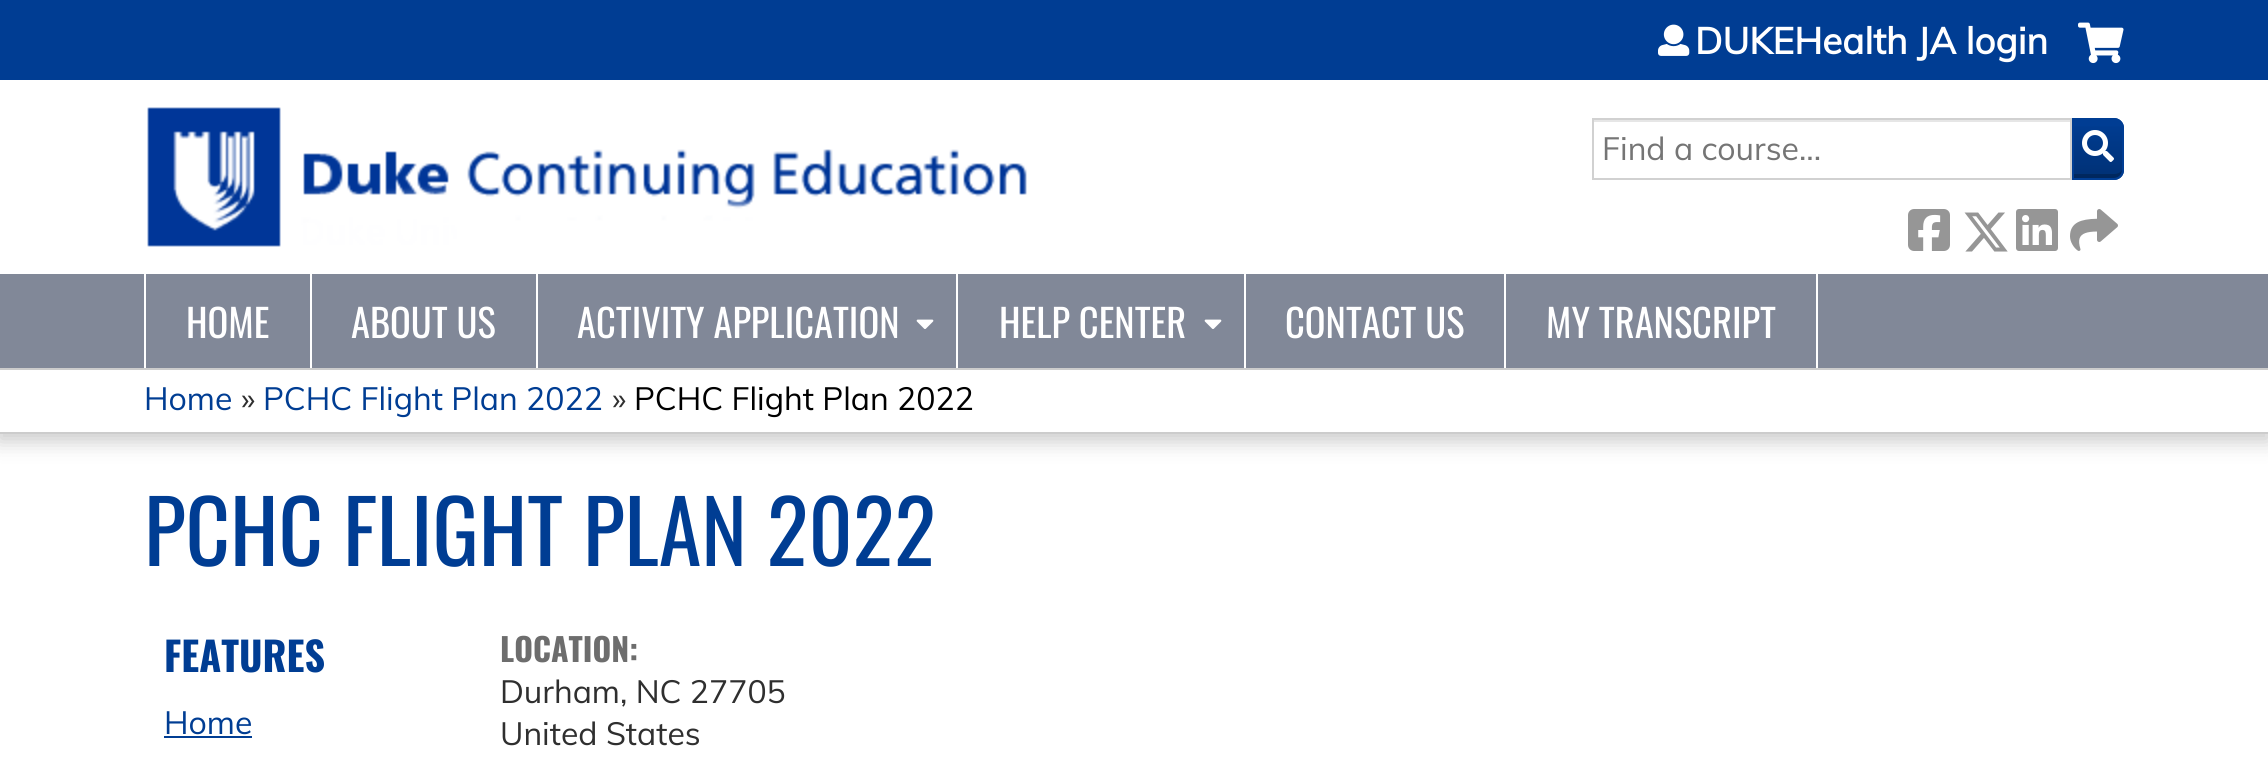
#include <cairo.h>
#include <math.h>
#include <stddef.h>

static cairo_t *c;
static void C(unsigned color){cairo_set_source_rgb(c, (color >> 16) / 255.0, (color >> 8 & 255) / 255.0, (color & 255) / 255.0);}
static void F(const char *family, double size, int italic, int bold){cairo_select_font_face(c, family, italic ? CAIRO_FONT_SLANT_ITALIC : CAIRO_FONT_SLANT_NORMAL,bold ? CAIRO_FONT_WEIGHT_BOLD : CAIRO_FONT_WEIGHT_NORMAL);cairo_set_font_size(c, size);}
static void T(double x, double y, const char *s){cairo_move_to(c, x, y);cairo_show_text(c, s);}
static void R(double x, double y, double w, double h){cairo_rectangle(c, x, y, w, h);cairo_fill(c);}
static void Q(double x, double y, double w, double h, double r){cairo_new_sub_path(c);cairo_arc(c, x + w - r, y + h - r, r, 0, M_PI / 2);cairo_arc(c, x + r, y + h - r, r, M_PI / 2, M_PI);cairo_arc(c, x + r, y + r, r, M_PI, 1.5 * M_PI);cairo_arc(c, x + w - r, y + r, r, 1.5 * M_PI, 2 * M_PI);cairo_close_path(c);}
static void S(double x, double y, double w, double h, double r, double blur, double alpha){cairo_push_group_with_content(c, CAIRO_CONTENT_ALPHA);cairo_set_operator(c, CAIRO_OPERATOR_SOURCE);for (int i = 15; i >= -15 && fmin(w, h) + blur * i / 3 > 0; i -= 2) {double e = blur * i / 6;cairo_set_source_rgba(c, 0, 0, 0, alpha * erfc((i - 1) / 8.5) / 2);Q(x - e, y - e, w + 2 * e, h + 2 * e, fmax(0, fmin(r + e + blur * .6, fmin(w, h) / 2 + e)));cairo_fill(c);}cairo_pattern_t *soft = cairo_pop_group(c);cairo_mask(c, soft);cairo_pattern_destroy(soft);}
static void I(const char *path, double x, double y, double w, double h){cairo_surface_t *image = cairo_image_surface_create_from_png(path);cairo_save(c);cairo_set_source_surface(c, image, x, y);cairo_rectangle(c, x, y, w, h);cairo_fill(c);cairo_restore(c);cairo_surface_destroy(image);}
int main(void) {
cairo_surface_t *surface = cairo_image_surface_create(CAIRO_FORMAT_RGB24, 2268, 762);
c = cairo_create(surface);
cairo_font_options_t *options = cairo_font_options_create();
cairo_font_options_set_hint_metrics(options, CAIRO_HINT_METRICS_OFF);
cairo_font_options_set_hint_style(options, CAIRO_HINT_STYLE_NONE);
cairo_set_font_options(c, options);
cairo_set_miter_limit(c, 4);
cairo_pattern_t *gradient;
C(0xffffff);
cairo_paint(c);
C(0x003d93);
R(0,0,2268,80);
I("1.png",1658,24,32,32);
F("Muli",36.75,0,1);
C(0xffffff);
T(1695,54,"DUKEHealth JA login");
I("2.png",2078,22,46,42);
C(0x003d93);
cairo_new_path(c);
cairo_move_to(c,2072,118);
cairo_line_to(c,2114,118);
cairo_curve_to(c,2119.5,118,2124,122.5,2124,128);
cairo_line_to(c,2124,170);
cairo_curve_to(c,2124,175.5,2119.5,180,2114,180);
cairo_line_to(c,2072,180);
cairo_close_path(c);
cairo_fill(c);
cairo_save(c);
cairo_new_path(c);
cairo_move_to(c,2072,118);
cairo_line_to(c,2114,118);
cairo_curve_to(c,2119.5,118,2124,122.5,2124,128);
cairo_line_to(c,2124,170);
cairo_curve_to(c,2124,175.5,2119.5,180,2114,180);
cairo_line_to(c,2072,180);
cairo_close_path(c);
cairo_clip(c);
gradient = cairo_pattern_create_linear(2098,178,2098,120);
cairo_pattern_add_color_stop_rgba(gradient,0,0,0,0,.2);
cairo_pattern_add_color_stop_rgba(gradient,1,0,0,0,0);
cairo_set_source(c,gradient);
cairo_pattern_destroy(gradient);
R(2074,126,50,52);
cairo_restore(c);
cairo_set_source_rgba(c,0,0,0,0.2);
cairo_new_path(c);
cairo_move_to(c,2074,174);
cairo_line_to(c,2074,178);
cairo_line_to(c,2114,178);
cairo_curve_to(c,2118,178,2122,175,2122,170);
cairo_curve_to(c,2120,173,2117,174,2114,174);
cairo_close_path(c);
cairo_fill(c);
cairo_new_path(c);
cairo_move_to(c,2073,119);
cairo_line_to(c,2114,119);
cairo_curve_to(c,2119,119,2123,123,2123,128);
cairo_line_to(c,2123,170);
cairo_curve_to(c,2123,175,2119,179,2114,179);
cairo_line_to(c,2073,179);
cairo_close_path(c);
C(0x003d93);
cairo_stroke(c);
C(0xe6e6e6);
R(1594,120,476,2);
cairo_rectangle(c,1593,119,478,60);
C(0xd1d1d1);
cairo_stroke(c);
F("Muli",32,0,0);
C(0x757575);
T(1602,160,"Find a course...");
I("3.png",2082,130,32,32);
I("4.png",1908,209,42,42);
I("5.png",1964,212,44,40);
I("6.png",2016,209,42,42);
I("7.png",2070,209,48,42);
I("8.png",147,107,880,140);
C(0x000000);
S(-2,372,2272,70,0,10,.2);
C(0x818898);
R(0,274,2268,94);
C(0xffffff);
R(310,274,2,94);
R(144,274,2,94);
F("Oswald",38.5,0,0);
T(186,338,"HOME");
R(536,274,2,94);
T(351,338,"ABOUT US");
R(956,274,2,94);
T(577,338,"ACTIVITY APPLICATION");
I("9.png",916,319,18,10);
R(1244,274,2,94);
T(999,338,"HELP CENTER");
I("9.png",1204,319,18,10);
R(1504,274,2,94);
T(1285,338,"CONTACT US");
R(1816,274,2,94);
T(1546,338,"MY TRANSCRIPT");
R(0,370,2268,62);
C(0xcccccc);
R(0,368,2268,2);
R(0,432,2268,2);
F("Muli",32,0,0);
C(0x003d93);
T(144,410,"Home");
C(0x2f2f2f);
T(241,410,"»");
C(0x003d93);
T(263,410,"PCHC Flight Plan 2022");
C(0x2f2f2f);
T(612,410,"»");
C(0x000000);
T(634,410,"PCHC Flight Plan 2022");
F("Oswald",86.5,0,0);
C(0x003d93);
T(144,566,"PCHC FLIGHT PLAN 2022");
F("Oswald",40,0,1);
T(164,672,"FEATURES");
F("Muli",32,0,0);
T(164,734,"Home");
R(164,736,88,2);
F("Oswald",32,0,1);
C(0x6d6d6d);
T(500,662,"LOCATION:");
F("Muli",32,0,0);
C(0x2f2f2f);
T(500,703,"Durham, NC 27705");
T(500,745,"United States");
cairo_surface_write_to_png(surface, "o.png");
cairo_font_options_destroy(options);
cairo_destroy(c);
cairo_surface_destroy(surface);
return 0;
}
